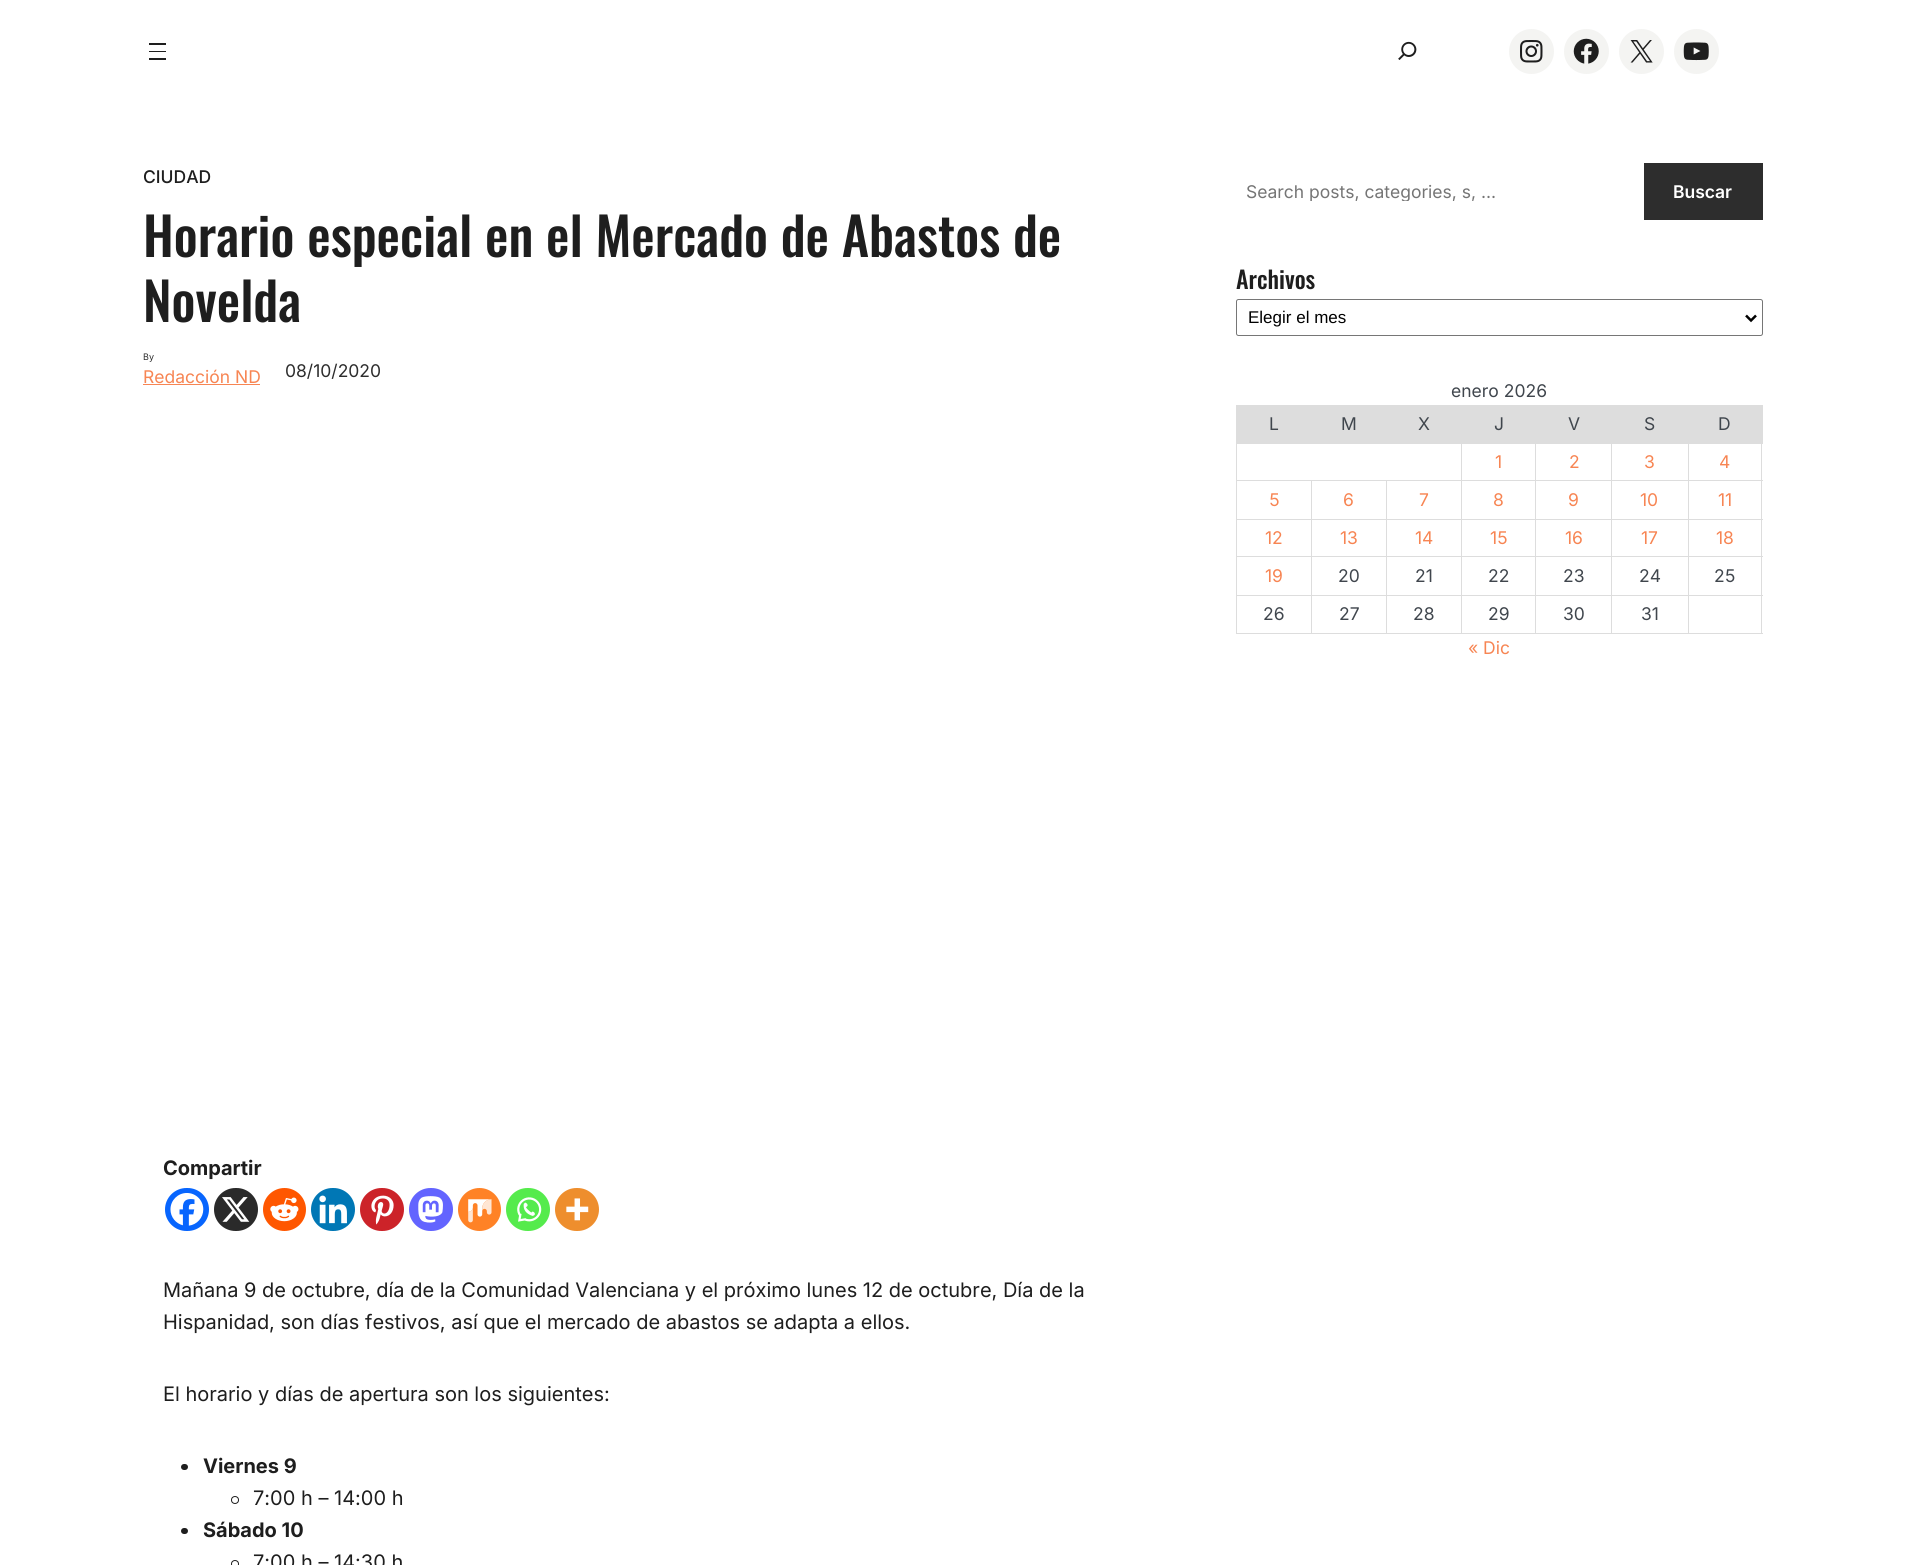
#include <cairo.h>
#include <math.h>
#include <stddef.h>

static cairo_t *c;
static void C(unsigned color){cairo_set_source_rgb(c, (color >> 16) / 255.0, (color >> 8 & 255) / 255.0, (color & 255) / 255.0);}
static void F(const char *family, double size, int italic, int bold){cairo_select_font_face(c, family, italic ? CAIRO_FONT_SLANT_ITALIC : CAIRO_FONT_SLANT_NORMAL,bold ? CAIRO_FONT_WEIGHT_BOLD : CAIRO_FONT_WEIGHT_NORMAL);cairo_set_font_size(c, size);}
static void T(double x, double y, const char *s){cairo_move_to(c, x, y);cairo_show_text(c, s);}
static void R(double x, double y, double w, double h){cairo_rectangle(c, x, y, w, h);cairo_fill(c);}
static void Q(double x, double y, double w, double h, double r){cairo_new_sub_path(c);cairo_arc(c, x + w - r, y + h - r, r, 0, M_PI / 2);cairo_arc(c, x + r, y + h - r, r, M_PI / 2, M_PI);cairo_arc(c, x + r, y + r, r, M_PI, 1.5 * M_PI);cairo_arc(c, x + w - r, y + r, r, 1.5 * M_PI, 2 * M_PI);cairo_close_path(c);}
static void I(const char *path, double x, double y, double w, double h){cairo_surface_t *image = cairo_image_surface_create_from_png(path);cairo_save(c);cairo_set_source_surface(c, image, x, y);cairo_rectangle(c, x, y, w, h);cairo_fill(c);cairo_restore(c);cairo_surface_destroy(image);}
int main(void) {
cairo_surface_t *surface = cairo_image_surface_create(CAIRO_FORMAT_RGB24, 1905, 1565);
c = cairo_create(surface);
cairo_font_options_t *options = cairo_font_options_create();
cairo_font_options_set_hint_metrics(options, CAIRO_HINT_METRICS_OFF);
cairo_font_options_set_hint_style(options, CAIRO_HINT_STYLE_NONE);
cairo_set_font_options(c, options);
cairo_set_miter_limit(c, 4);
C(0xffffff);
cairo_paint(c);
C(0x1e1e1e);
R(149,43,17,2);
R(149,51,17,1);
R(149,58,17,2);
I("1.png",1398,41,19,19);
C(0xf4f4f2);
cairo_arc(c,1531.5,51.5,22.5,0,2 * M_PI);
cairo_fill(c);
I("2.png",1520,40,23,23);
cairo_arc(c,1586.5,51.5,22.5,0,2 * M_PI);
cairo_fill(c);
I("3.png",1573,38,26,26);
cairo_arc(c,1641.5,51.5,22.5,0,2 * M_PI);
cairo_fill(c);
I("4.png",1630,40,23,23);
cairo_arc(c,1696.5,51.5,22.5,0,2 * M_PI);
cairo_fill(c);
I("5.png",1683,42,26,19);
F("Inter Medium",17.5,0,0);
C(0x1e1e1e);
T(143,183,"CIUDAD");
F("Oswald Medium",52.5,0,0);
T(143,257,"Horario especial en el Mercado de Abastos de");
T(143,322,"Novelda");
F("Inter",9,0,0);
C(0x2d2d2d);
T(143,360,"By");
F("Inter",17.5,0,0);
C(0xf78553);
T(143,383,"Redacción ND");
R(143,384,117,1);
C(0x2d2d2d);
T(285,377,"08/10/2020");
F("Inter",20,0,1);
C(0x1e1e1e);
T(163,1175,"Compartir");
C(0x0765fe);
Q(165,1188,44,43,21.5);
cairo_fill(c);
I("6.png",170,1193,34,33);
C(0x2a2a2a);
Q(214,1188,44,43,21.5);
cairo_fill(c);
I("7.png",222,1197,28,25);
C(0xff5700);
cairo_arc(c,284.5,1209.5,21.5,0,2 * M_PI);
cairo_fill(c);
I("8.png",270,1197,29,25);
C(0x0077b5);
Q(311,1188,44,43,21.5);
cairo_fill(c);
I("9.png",319,1195,28,29);
C(0xcc2329);
Q(360,1188,44,43,21.5);
cairo_fill(c);
I("10.png",371,1195,23,30);
C(0x6364ff);
Q(409,1188,44,43,21.5);
cairo_fill(c);
I("11.png",418,1196,25,27);
C(0xff8226);
cairo_arc(c,479.5,1209.5,21.5,0,2 * M_PI);
cairo_fill(c);
I("12.png",468,1199,24,24);
C(0x55eb4c);
Q(506,1188,44,43,21.5);
cairo_fill(c);
I("13.png",517,1197,25,25);
C(0xee8e2d);
Q(555,1188,44,43,21.5);
cairo_fill(c);
I("14.png",566,1198,23,23);
F("Inter",20,0,0);
C(0x1e1e1e);
T(163,1297,"Mañana 9 de octubre, día de la Comunidad Valenciana y el próximo lunes 12 de octubre, Día de la");
T(163,1329,"Hispanidad, son días festivos, así que el mercado de abastos se adapta a ellos.");
T(163,1401,"El horario y días de apertura son los siguientes:");
Q(181,1464,7,6,3);
cairo_fill(c);
F("Inter",20,0,1);
T(203,1473,"Viernes 9");
cairo_new_path(c);
cairo_arc(c,235,1500,3.5,0,2 * M_PI);
cairo_set_line_width(c,1);
cairo_stroke(c);
F("Inter",20,0,0);
T(253,1505,"7:00 h – 14:00 h");
Q(181,1528,7,6,3);
cairo_fill(c);
F("Inter",20,0,1);
T(203,1537,"Sábado 10");
cairo_new_path(c);
cairo_arc(c,235,1564,3.5,0,2 * M_PI);
cairo_stroke(c);
F("Inter",20,0,0);
T(253,1569,"7:00 h – 14:30 h");
cairo_save(c);
cairo_rectangle(c,1246,180,358,21);
cairo_clip(c);
F("Inter",17.5,0,0);
C(0x757575);
T(1246,198,"Search posts, categories, s, ...");
cairo_restore(c);
C(0x2d2d2d);
R(1644,163,119,57);
F("Inter SemiBold",17.5,0,0);
C(0xffffff);
T(1673,198,"Buscar");
F("Oswald Medium",24,0,0);
C(0x1e1e1e);
T(1236,289,"Archivos");
Q(1236.5,299.5,526,36,2);
C(0x767676);
cairo_stroke(c);
cairo_new_path(c);
cairo_move_to(c,1746,315.5);
cairo_line_to(c,1751,320.5);
cairo_line_to(c,1756,315.5);
C(0x000000);
cairo_set_line_width(c,2.5);
cairo_stroke(c);
F("Liberation Sans",17,0,0);
T(1248,323,"Elegir el mes");
F("Inter",17.5,0,0);
C(0x40464d);
T(1451,397,"enero 2026");
C(0xdddddd);
R(1236,405,527,39);
C(0x40464d);
T(1269,430,"L");
T(1341,430,"M");
T(1418,430,"X");
T(1494,430,"J");
T(1568,430,"V");
T(1644,430,"S");
T(1718,430,"D");
C(0xdddddd);
R(1688,480,75,1);
R(1688,519,75,1);
R(1688,556,75,1);
R(1688,595,75,1);
R(1761,595,1,39);
R(1688,633,75,1);
R(1688,595,1,39);
R(1611,595,78,1);
R(1688,556,1,40);
R(1611,556,78,1);
R(1688,519,1,39);
R(1611,519,78,1);
R(1688,480,1,40);
R(1611,480,78,1);
R(1611,633,78,1);
R(1611,595,1,39);
R(1535,595,78,1);
R(1611,556,1,40);
R(1535,556,78,1);
R(1611,519,1,39);
R(1535,519,78,1);
R(1611,480,1,40);
R(1535,480,78,1);
R(1535,633,78,1);
R(1535,595,1,39);
R(1461,595,75,1);
R(1535,556,1,40);
R(1461,556,75,1);
R(1535,519,1,39);
R(1461,519,75,1);
R(1535,480,1,40);
R(1461,480,75,1);
R(1461,633,75,1);
R(1461,595,1,39);
R(1386,595,77,1);
R(1461,556,1,40);
R(1386,556,77,1);
R(1461,519,1,39);
R(1386,519,77,1);
R(1461,480,1,40);
R(1386,480,77,1);
R(1461,443,1,38);
C(0xf78553);
T(1495,468,"1");
C(0xdddddd);
R(1535,443,1,38);
C(0xf78553);
T(1569,468,"2");
C(0xdddddd);
R(1611,443,1,38);
C(0xf78553);
T(1644,468,"3");
C(0xdddddd);
R(1688,443,1,38);
C(0xf78553);
T(1719,468,"4");
C(0xdddddd);
R(1386,633,77,1);
R(1386,595,1,39);
R(1311,595,77,1);
R(1386,556,1,40);
R(1311,556,77,1);
R(1386,519,1,39);
R(1311,519,77,1);
R(1386,480,1,40);
R(1311,480,77,1);
R(1311,633,77,1);
R(1311,595,1,39);
R(1236,595,77,1);
R(1311,556,1,40);
R(1236,556,77,1);
R(1311,519,1,39);
R(1236,519,77,1);
R(1311,480,1,40);
R(1236,480,77,1);
R(1236,633,77,1);
R(1236,595,1,39);
R(1236,556,1,40);
R(1236,519,1,39);
R(1236,443,1,77);
C(0xf78553);
T(1269,506,"5");
T(1343,506,"6");
T(1419,506,"7");
T(1493,506,"8");
T(1568,506,"9");
T(1640,506,"10");
C(0xdddddd);
R(1761,556,1,40);
R(1761,519,1,39);
R(1761,443,1,77);
C(0xf78553);
T(1718,506,"11");
T(1265,544,"12");
T(1340,544,"13");
T(1415,544,"14");
T(1490,544,"15");
T(1565,544,"16");
T(1641,544,"17");
T(1716,544,"18");
T(1265,582,"19");
C(0x40464d);
T(1338,582,"20");
T(1415,582,"21");
T(1488,582,"22");
T(1563,582,"23");
T(1639,582,"24");
T(1714,582,"25");
T(1263,620,"26");
T(1339,620,"27");
T(1413,620,"28");
T(1488,620,"29");
T(1563,620,"30");
T(1641,620,"31");
C(0xf78553);
T(1468,654,"« Dic");
cairo_surface_write_to_png(surface, "o.png");
cairo_font_options_destroy(options);
cairo_destroy(c);
cairo_surface_destroy(surface);
return 0;
}
